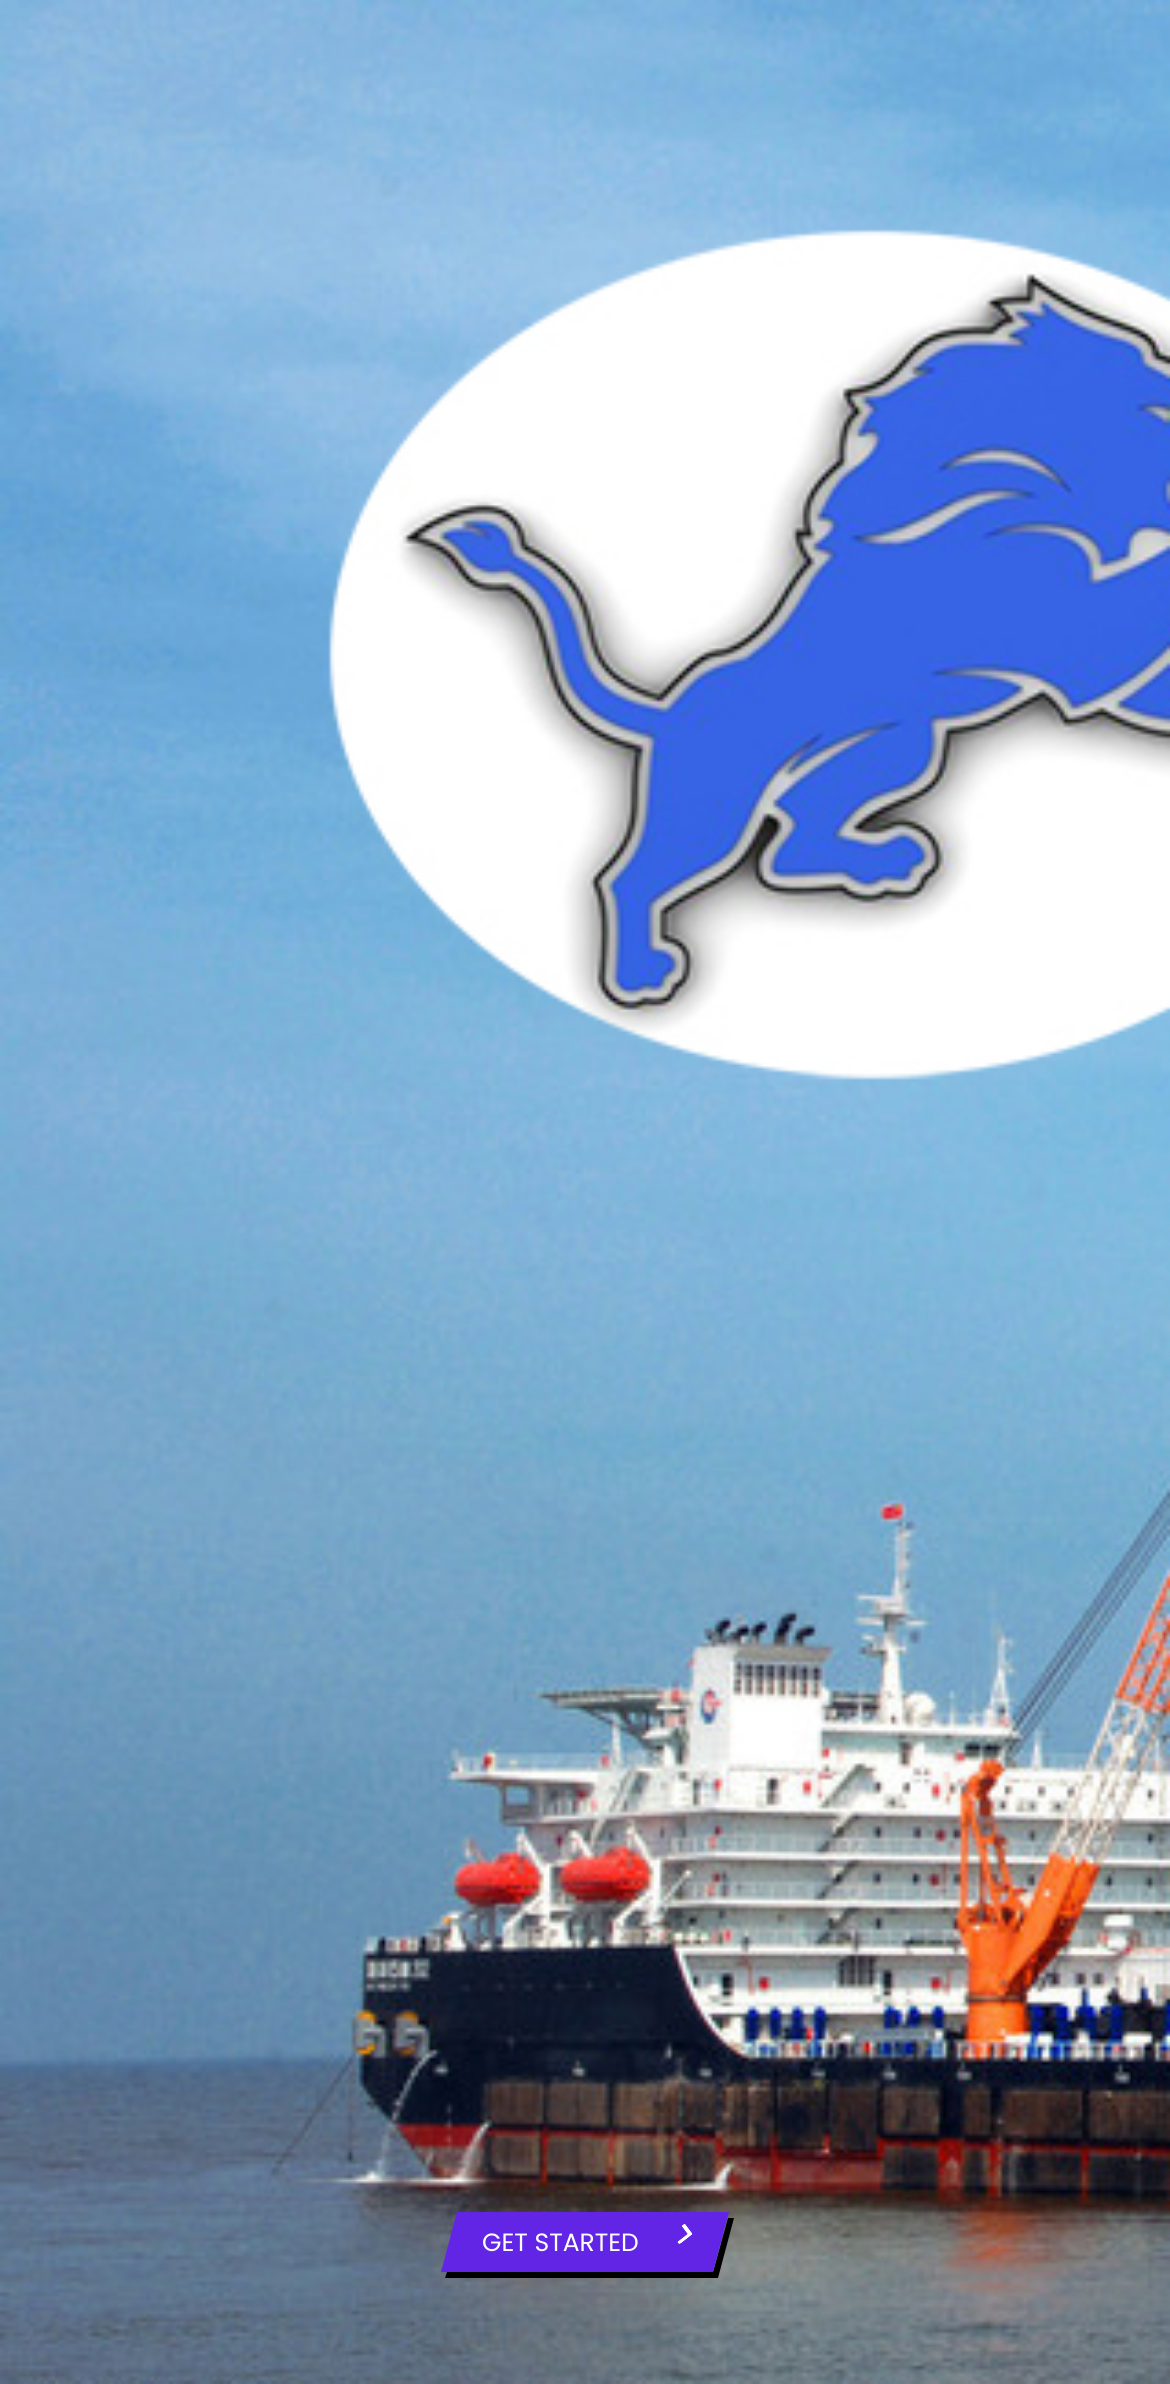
#include <cairo.h>
#include <math.h>
#include <stddef.h>

static cairo_t *c;
static void C(unsigned color){cairo_set_source_rgb(c, (color >> 16) / 255.0, (color >> 8 & 255) / 255.0, (color & 255) / 255.0);}
static void F(const char *family, double size, int italic, int bold){cairo_select_font_face(c, family, italic ? CAIRO_FONT_SLANT_ITALIC : CAIRO_FONT_SLANT_NORMAL,bold ? CAIRO_FONT_WEIGHT_BOLD : CAIRO_FONT_WEIGHT_NORMAL);cairo_set_font_size(c, size);}
static void T(double x, double y, const char *s){cairo_move_to(c, x, y);cairo_show_text(c, s);}
static void I(const char *path, double x, double y, double w, double h){cairo_surface_t *image = cairo_image_surface_create_from_png(path);cairo_save(c);cairo_set_source_surface(c, image, x, y);cairo_rectangle(c, x, y, w, h);cairo_fill(c);cairo_restore(c);cairo_surface_destroy(image);}
int main(void) {
cairo_surface_t *surface = cairo_image_surface_create(CAIRO_FORMAT_RGB24, 1170, 2384);
c = cairo_create(surface);
cairo_font_options_t *options = cairo_font_options_create();
cairo_font_options_set_hint_metrics(options, CAIRO_HINT_METRICS_OFF);
cairo_font_options_set_hint_style(options, CAIRO_HINT_STYLE_NONE);
cairo_set_font_options(c, options);
cairo_set_miter_limit(c, 4);
C(0xffffff);
cairo_paint(c);
I("1.png",0,0,1170,2384);
C(0x000000);
cairo_new_path(c);
cairo_move_to(c,447,2272);
cairo_line_to(c,445,2278);
cairo_line_to(c,718,2278);
cairo_line_to(c,734,2218);
cairo_line_to(c,728,2218);
cairo_line_to(c,713,2272);
cairo_close_path(c);
cairo_fill(c);
C(0x6225e6);
cairo_new_path(c);
cairo_move_to(c,457,2212);
cairo_line_to(c,729,2212);
cairo_line_to(c,713,2272);
cairo_line_to(c,441,2272);
cairo_close_path(c);
cairo_fill(c);
F("Poppins",25,0,0);
C(0xffffff);
T(482,2251,"GET STARTED");
I("2.png",677,2224,16,20);
cairo_surface_write_to_png(surface, "o.png");
cairo_font_options_destroy(options);
cairo_destroy(c);
cairo_surface_destroy(surface);
return 0;
}
